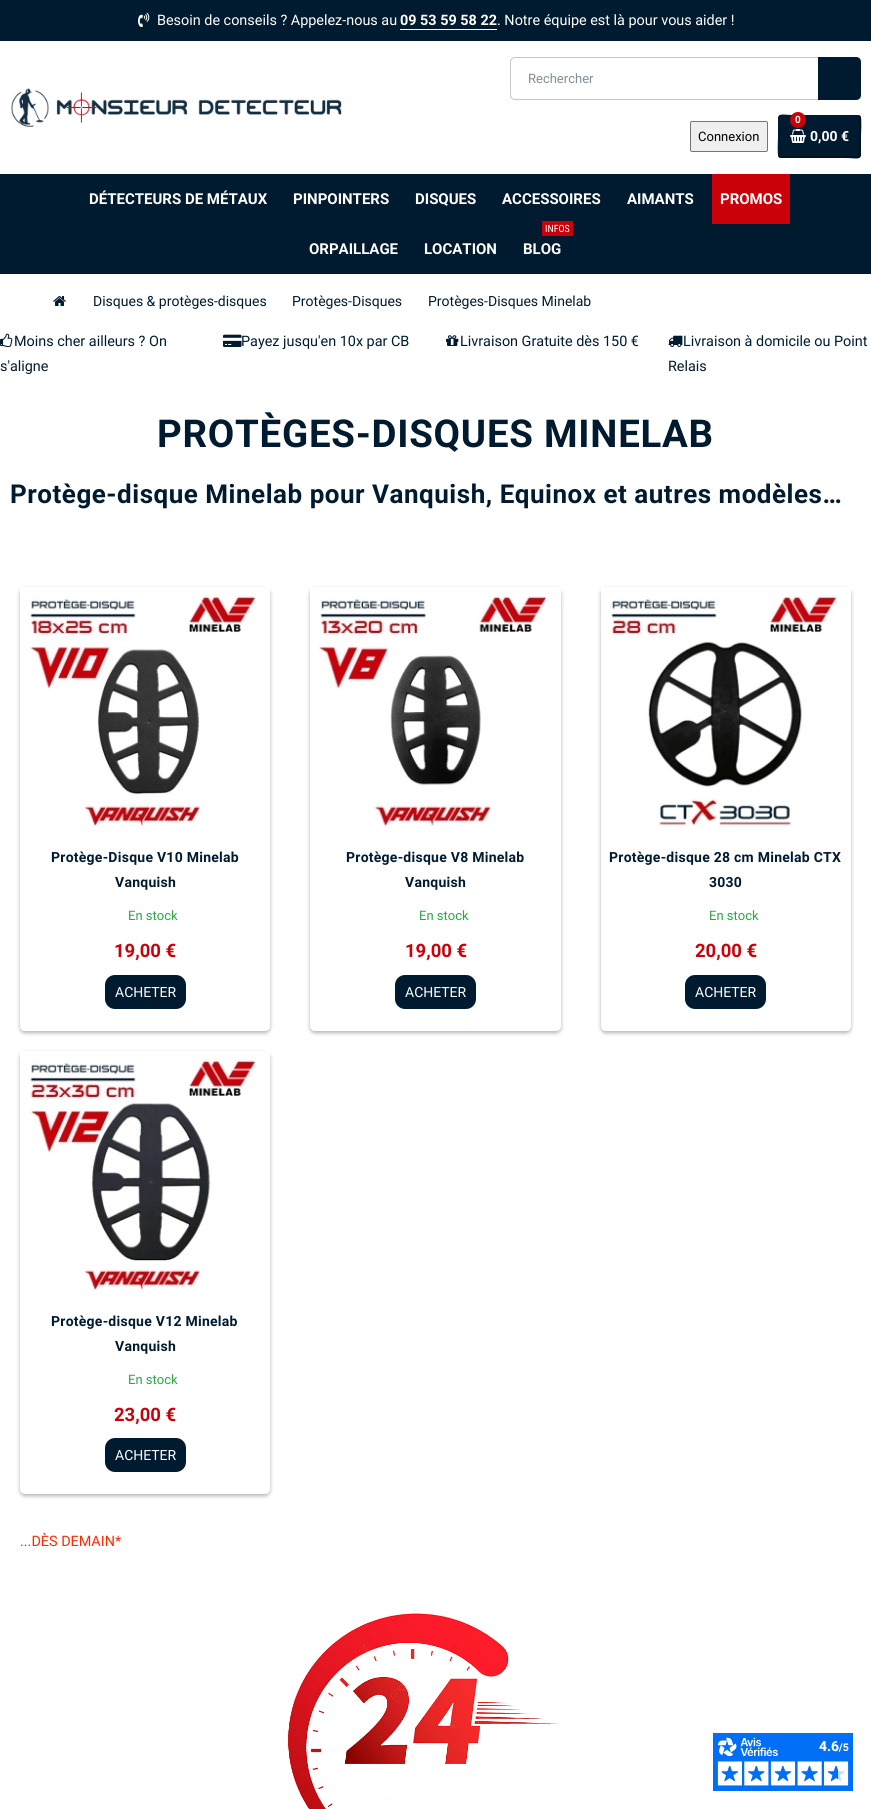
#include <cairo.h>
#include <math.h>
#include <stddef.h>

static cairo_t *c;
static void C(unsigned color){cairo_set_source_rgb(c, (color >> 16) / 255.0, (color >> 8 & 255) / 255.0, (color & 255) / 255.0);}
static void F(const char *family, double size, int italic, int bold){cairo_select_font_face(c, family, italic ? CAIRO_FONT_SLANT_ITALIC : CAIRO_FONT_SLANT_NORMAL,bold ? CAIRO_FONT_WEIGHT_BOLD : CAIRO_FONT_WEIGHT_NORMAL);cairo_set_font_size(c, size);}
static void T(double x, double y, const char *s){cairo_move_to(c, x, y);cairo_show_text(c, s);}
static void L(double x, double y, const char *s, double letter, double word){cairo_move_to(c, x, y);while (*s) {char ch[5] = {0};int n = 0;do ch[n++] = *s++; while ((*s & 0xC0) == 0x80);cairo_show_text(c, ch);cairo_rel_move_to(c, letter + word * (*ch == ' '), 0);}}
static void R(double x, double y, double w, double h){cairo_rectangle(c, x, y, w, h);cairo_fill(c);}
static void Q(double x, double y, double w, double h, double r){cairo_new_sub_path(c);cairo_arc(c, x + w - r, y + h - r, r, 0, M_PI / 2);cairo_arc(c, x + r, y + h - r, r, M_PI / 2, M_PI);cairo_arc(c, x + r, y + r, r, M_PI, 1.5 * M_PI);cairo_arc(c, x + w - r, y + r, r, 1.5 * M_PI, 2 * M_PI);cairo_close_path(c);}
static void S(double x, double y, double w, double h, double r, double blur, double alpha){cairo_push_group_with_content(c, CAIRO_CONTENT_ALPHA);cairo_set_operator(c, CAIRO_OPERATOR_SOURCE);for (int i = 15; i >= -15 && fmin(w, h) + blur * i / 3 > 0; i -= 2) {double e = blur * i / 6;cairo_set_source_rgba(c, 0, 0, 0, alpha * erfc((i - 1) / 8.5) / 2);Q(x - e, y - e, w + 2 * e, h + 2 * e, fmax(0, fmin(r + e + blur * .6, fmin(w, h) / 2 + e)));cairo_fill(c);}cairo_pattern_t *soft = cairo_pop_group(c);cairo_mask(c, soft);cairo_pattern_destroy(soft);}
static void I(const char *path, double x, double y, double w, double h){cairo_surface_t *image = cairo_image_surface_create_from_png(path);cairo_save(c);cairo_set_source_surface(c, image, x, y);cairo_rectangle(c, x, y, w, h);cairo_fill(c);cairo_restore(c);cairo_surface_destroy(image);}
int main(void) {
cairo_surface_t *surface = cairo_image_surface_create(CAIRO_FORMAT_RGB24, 871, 1809);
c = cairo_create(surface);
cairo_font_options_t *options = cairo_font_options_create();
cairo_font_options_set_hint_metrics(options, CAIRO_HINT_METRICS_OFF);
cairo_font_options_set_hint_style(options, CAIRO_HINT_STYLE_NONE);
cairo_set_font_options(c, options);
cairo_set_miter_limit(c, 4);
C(0xffffff);
cairo_paint(c);
C(0x001b30);
R(0,0,871,41);
I("1.png",138,12,12,15);
F("Roboto",14.4,0,0);
C(0xffffff);
T(157,25,"Besoin de conseils ? Appelez-nous au");
F("Roboto",14.4,0,1);
T(400,25,"09 53 59 58 22");
R(400,29,97,1);
F("Roboto",14.4,0,0);
T(497,25,". Notre équipe est là pour vous aider !");
I("2.png",11,88,331,39);
Q(510.5,57.5,349,42,4.5);
C(0xc7c7c7);
cairo_set_line_width(c,1);
cairo_stroke(c);
F("Roboto",13,0,0);
C(0x808d98);
T(528,83,"Rechercher");
C(0x001b30);
cairo_new_path(c);
cairo_move_to(c,818,57);
cairo_line_to(c,856,57);
cairo_curve_to(c,859,57,861,59,861,62);
cairo_line_to(c,861,95);
cairo_curve_to(c,861,98,859,100,856,100);
cairo_line_to(c,818,100);
cairo_close_path(c);
cairo_fill(c);
C(0xefefef);
Q(690.5,121.5,77,30,1.5);
cairo_fill_preserve(c);
C(0x767676);
cairo_stroke(c);
C(0x000000);
T(698,141,"Connexion");
C(0x001b30);
Q(778,115,83,43,3);
cairo_fill(c);
cairo_new_path(c);
cairo_move_to(c,859.5,116.5);
cairo_curve_to(c,861,118,860,133.5,860,136.5);
cairo_line_to(c,860,149);
cairo_curve_to(c,860,160.5,860,157,845,157);
cairo_line_to(c,781,157);
cairo_line_to(c,779.5,156.5);
C(0x001220);
cairo_set_line_width(c,2);
cairo_stroke(c);
cairo_new_path(c);
cairo_move_to(c,779.5,156.5);
cairo_curve_to(c,778,155,779,139.5,779,136.5);
cairo_line_to(c,779,124);
cairo_curve_to(c,779,112.5,779,116,794,116);
cairo_line_to(c,858,116);
cairo_line_to(c,859.5,116.5);
C(0x001b30);
cairo_stroke(c);
C(0xcb010a);
cairo_arc(c,798,120,8,0,2 * M_PI);
cairo_fill(c);
F("Roboto",10,0,1);
C(0xffffff);
T(795,123,"0");
I("3.png",790,129,16,14);
F("Roboto",14,0,1);
T(810,141,"0,00 €");
C(0x001b30);
R(0,174,871,100);
F("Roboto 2",15,0,1);
C(0xffffff);
T(89,204,"DÉTECTEURS DE MÉTAUX");
T(293,204,"PINPOINTERS");
T(415,204,"DISQUES");
T(502,204,"ACCESSOIRES");
T(627,204,"AIMANTS");
C(0xcb010a);
R(712,174,78,50);
C(0xffffff);
T(720,204,"PROMOS");
T(309,254,"ORPAILLAGE");
T(424,254,"LOCATION");
C(0xcb010a);
Q(542,221,31,15,1);
cairo_fill(c);
F("Roboto Condensed",10,0,0);
C(0xffffff);
T(545,232,"INFOS");
F("Roboto 2",15,0,1);
T(523,254,"BLOG");
I("4.png",53,296,13,10);
F("Roboto",14,0,0);
C(0x001b30);
T(93,306,"Disques & protèges-disques");
T(292,306,"Protèges-Disques");
T(428,306,"Protèges-Disques Minelab");
I("5.png",0,333,13,14);
F("Roboto",14.4,0,0);
T(14,346,"Moins cher ailleurs ? On");
T(0,371,"s'aligne");
I("6.png",223,334,19,13);
T(241,346,"Payez jusqu'en 10x par CB");
I("7.png",446,335,13,11);
T(460,346,"Livraison Gratuite dès 150 €");
I("8.png",668,335,15,12);
T(683,346,"Livraison à domicile ou Point");
T(668,371,"Relais");
F("Roboto 2",38.4,0,1);
L(157,447,"PROTÈGES-DISQUES MINELAB",.75,0);
F("Roboto 2",26,0,1);
L(10,503,"Protège-disque Minelab pour Vanquish, Equinox et autres modèles…",.52,0);
C(0x000000);
S(20,589,250,444,5,2,.3);
C(0xffffff);
cairo_new_path(c);
cairo_move_to(c,20,587);
cairo_line_to(c,270,587);
cairo_line_to(c,270,1026);
cairo_curve_to(c,270,1029,268,1031,265,1031);
cairo_line_to(c,25,1031);
cairo_curve_to(c,22,1031,20,1029,20,1026);
cairo_close_path(c);
cairo_fill(c);
I("9.png",28,595,228,232);
F("Roboto",14,0,1);
C(0x001b30);
L(51,862,"Protège-Disque V10 Minelab",.25,0);
L(115,887,"Vanquish",.25,0);
F("Roboto",13,0,0);
C(0x28a745);
T(128,920,"En stock");
F("Roboto",18.5,0,1);
C(0xcb010a);
T(114,957,"19,00 €");
C(0x001b30);
Q(105,975,81,34,10);
cairo_fill(c);
F("Roboto",14,0,0);
C(0xffffff);
T(115,997,"ACHETER");
C(0x000000);
S(310,589,251,444,5,2,.3);
C(0xffffff);
cairo_new_path(c);
cairo_move_to(c,310,587);
cairo_line_to(c,561,587);
cairo_line_to(c,561,1026);
cairo_curve_to(c,561,1029,559,1031,556,1031);
cairo_line_to(c,315,1031);
cairo_curve_to(c,312,1031,310,1029,310,1026);
cairo_close_path(c);
cairo_fill(c);
I("10.png",319,595,228,232);
F("Roboto",14,0,1);
C(0x001b30);
L(346,862,"Protège-disque V8 Minelab",.25,0);
L(405,887,"Vanquish",.25,0);
F("Roboto",13,0,0);
C(0x28a745);
T(419,920,"En stock");
F("Roboto",18.5,0,1);
C(0xcb010a);
T(405,957,"19,00 €");
C(0x001b30);
Q(395,975,81,34,10);
cairo_fill(c);
F("Roboto",14,0,0);
C(0xffffff);
T(405,997,"ACHETER");
C(0x000000);
S(601,589,250,444,5,2,.3);
C(0xffffff);
cairo_new_path(c);
cairo_move_to(c,601,587);
cairo_line_to(c,851,587);
cairo_line_to(c,851,1026);
cairo_curve_to(c,851,1029,849,1031,846,1031);
cairo_line_to(c,606,1031);
cairo_curve_to(c,603,1031,601,1029,601,1026);
cairo_close_path(c);
cairo_fill(c);
I("11.png",611,595,226,232);
F("Roboto",14,0,1);
C(0x001b30);
L(609,862,"Protège-disque 28 cm Minelab CTX",.25,0);
L(709,887,"3030",.25,0);
F("Roboto",13,0,0);
C(0x28a745);
T(709,920,"En stock");
F("Roboto",18.5,0,1);
C(0xcb010a);
T(695,957,"20,00 €");
C(0x001b30);
Q(685,975,81,34,10);
cairo_fill(c);
F("Roboto",14,0,0);
C(0xffffff);
T(695,997,"ACHETER");
C(0x000000);
S(20,1053,250,443,5,2,.3);
C(0xffffff);
cairo_new_path(c);
cairo_move_to(c,20,1051);
cairo_line_to(c,270,1051);
cairo_line_to(c,270,1489);
cairo_curve_to(c,270,1492,268,1494,265,1494);
cairo_line_to(c,25,1494);
cairo_curve_to(c,22,1494,20,1492,20,1489);
cairo_close_path(c);
cairo_fill(c);
I("12.png",30,1059,226,232);
F("Roboto",14,0,1);
C(0x001b30);
L(51,1326,"Protège-disque V12 Minelab",.25,0);
L(115,1351,"Vanquish",.25,0);
F("Roboto",13,0,0);
C(0x28a745);
T(128,1384,"En stock");
F("Roboto",18.5,0,1);
C(0xcb010a);
T(114,1421,"23,00 €");
C(0x001b30);
Q(105,1438,81,34,10);
cairo_fill(c);
F("Roboto",14,0,0);
C(0xffffff);
T(115,1460,"ACHETER");
F("Roboto",14.4,0,0);
C(0xff2a00);
T(20,1546,"...DÈS DEMAIN*");
I("13.png",288,1613,270,196);
I("14.png",713,1733,140,58);
cairo_surface_write_to_png(surface, "o.png");
cairo_font_options_destroy(options);
cairo_destroy(c);
cairo_surface_destroy(surface);
return 0;
}
